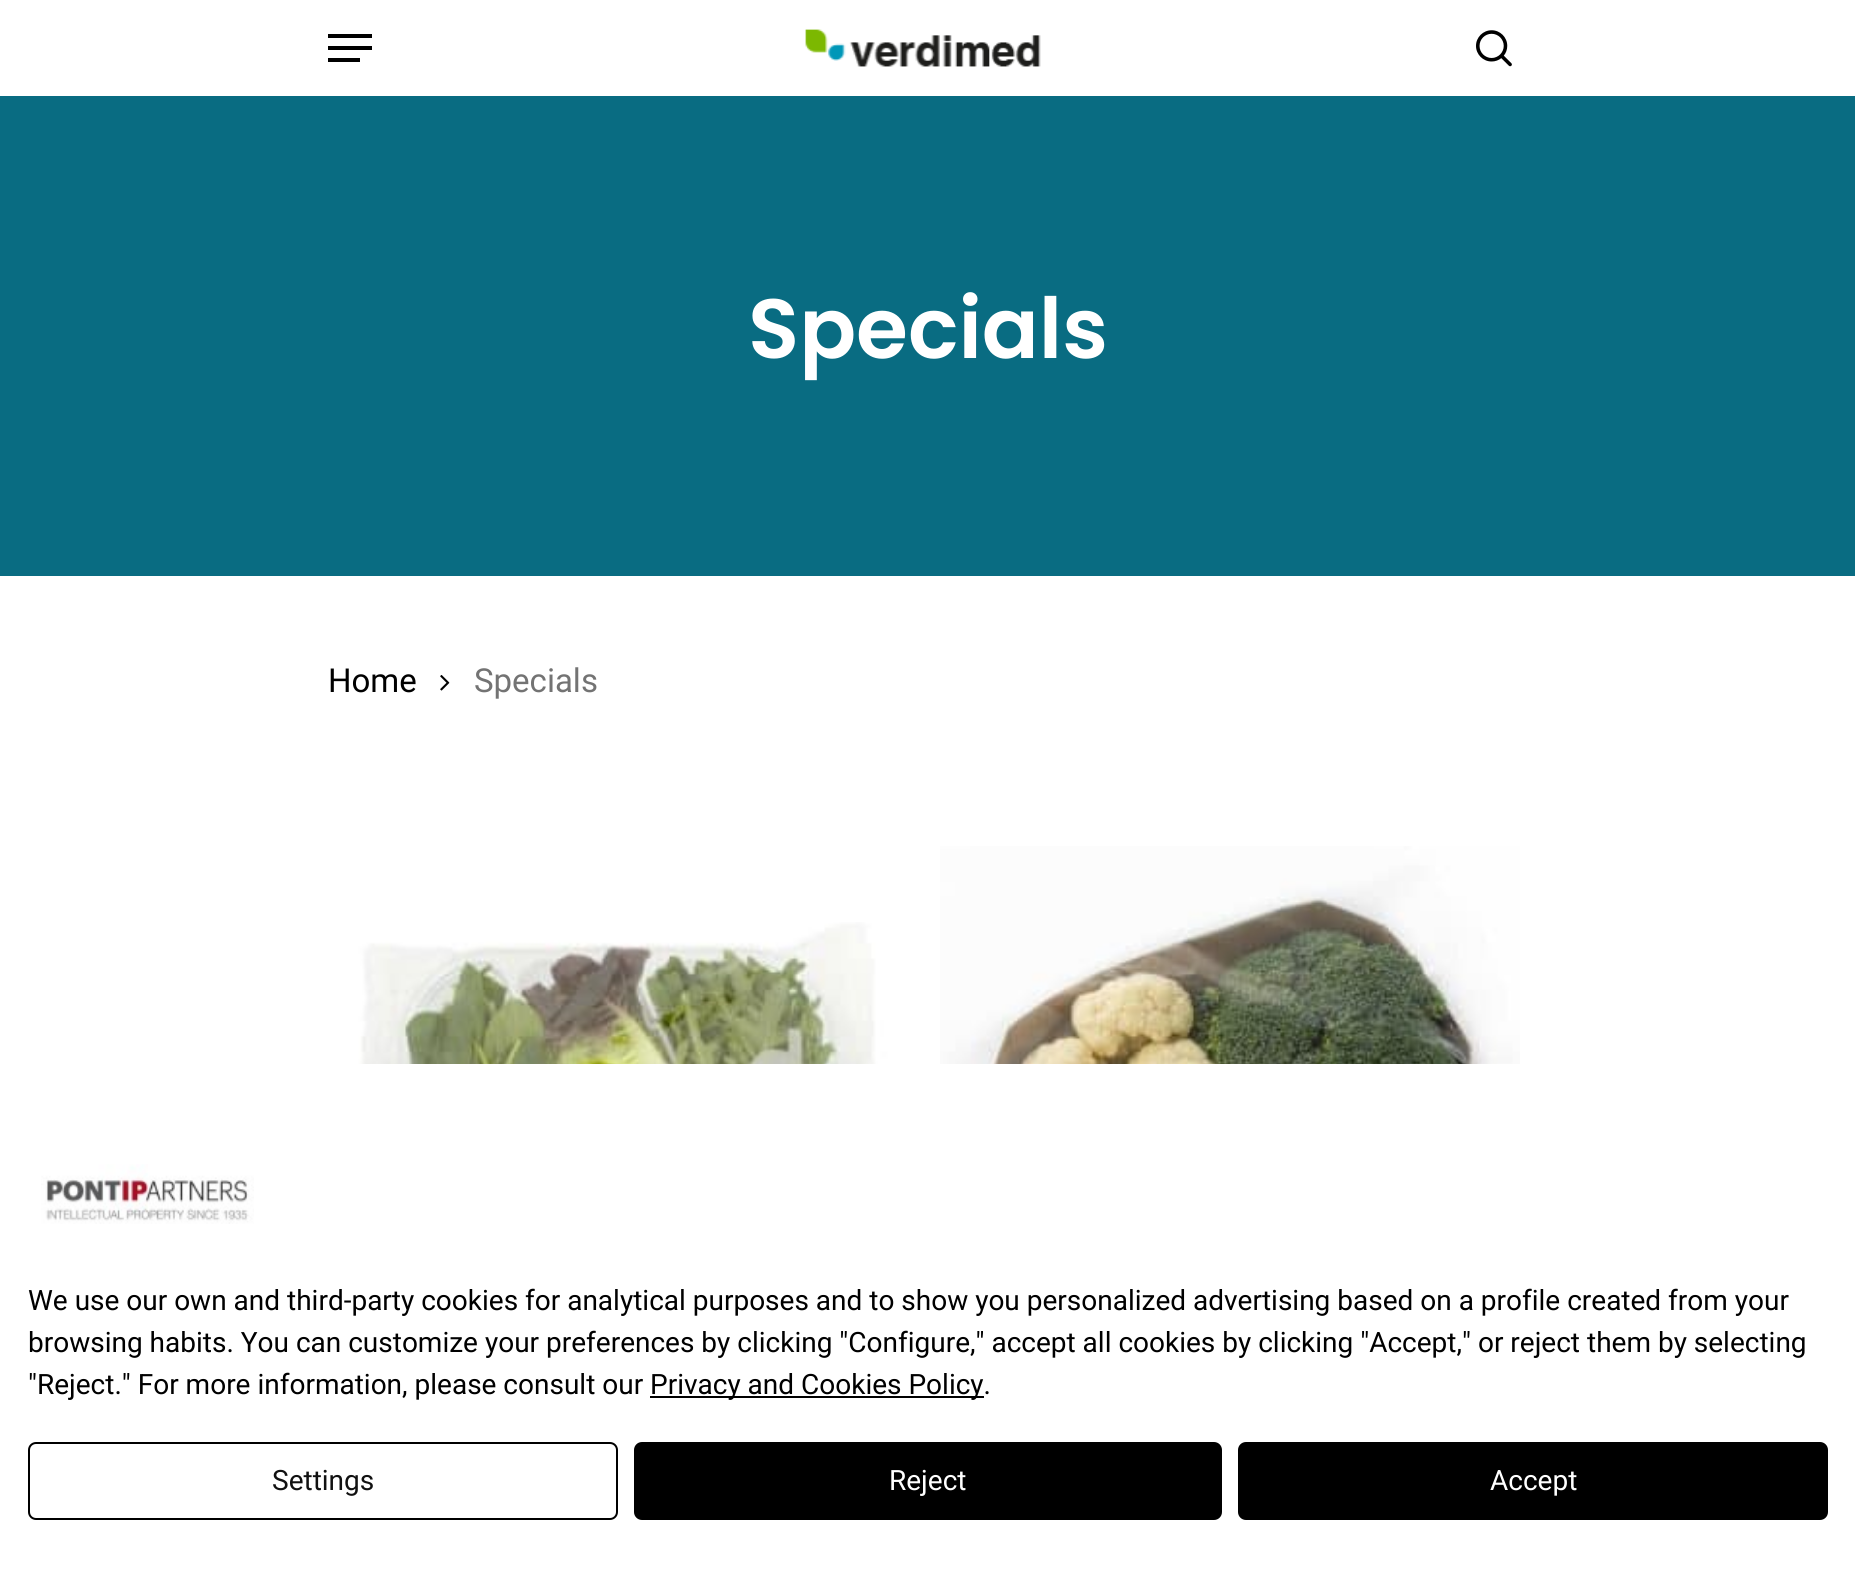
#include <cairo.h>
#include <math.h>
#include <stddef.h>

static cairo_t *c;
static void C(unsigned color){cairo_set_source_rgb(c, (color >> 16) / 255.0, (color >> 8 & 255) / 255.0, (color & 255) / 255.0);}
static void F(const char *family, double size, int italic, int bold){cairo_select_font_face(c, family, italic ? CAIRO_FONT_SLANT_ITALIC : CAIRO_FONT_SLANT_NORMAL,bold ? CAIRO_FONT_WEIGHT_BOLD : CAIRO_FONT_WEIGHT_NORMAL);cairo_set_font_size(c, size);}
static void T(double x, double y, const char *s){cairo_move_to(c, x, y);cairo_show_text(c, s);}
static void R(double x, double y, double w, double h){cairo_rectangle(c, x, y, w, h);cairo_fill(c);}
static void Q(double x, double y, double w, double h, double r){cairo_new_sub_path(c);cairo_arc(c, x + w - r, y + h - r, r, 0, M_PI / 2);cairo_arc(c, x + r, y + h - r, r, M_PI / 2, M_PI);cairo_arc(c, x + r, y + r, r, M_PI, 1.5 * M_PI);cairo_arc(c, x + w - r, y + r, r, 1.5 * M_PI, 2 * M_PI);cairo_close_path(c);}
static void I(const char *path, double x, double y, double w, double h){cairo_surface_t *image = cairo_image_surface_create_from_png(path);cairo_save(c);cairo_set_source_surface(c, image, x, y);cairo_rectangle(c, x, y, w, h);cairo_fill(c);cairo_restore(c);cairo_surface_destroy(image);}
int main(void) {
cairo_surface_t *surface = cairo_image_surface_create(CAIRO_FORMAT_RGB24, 1855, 1576);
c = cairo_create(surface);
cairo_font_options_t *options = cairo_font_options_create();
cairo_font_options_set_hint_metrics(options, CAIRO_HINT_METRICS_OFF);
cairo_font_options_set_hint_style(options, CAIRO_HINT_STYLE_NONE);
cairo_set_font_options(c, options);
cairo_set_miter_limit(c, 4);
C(0xffffff);
cairo_paint(c);
I("1.png",805,29,236,38);
C(0x000000);
R(328,34,44,4);
R(328,58,32,4);
R(328,46,44,4);
I("2.png",1476,30,36,37);
C(0x096c82);
R(0,96,1855,480);
F("Poppins SemiBold",84,0,0);
C(0xffffff);
T(748,358,"Specials");
F("Roboto",33,0,0);
C(0x000000);
T(328,692,"Home");
I("3.png",440,675,10,16);
C(0x737373);
T(474,692,"Specials");
I("4.png",337,922,566,142);
I("5.png",940,846,580,218);
I("6.png",41,1164,213,60);
F("Roboto",28,0,0);
C(0x000000);
T(28,1310,"We use our own and third-party cookies for analytical purposes and to show you personalized advertising based on a profile created from your");
T(28,1352,"browsing habits. You can customize your preferences by clicking \"Configure,\" accept all cookies by clicking \"Accept,\" or reject them by selecting");
T(28,1394,"\"Reject.\" For more information, please consult our");
R(650,1396,334,2);
T(650,1394,"Privacy and Cookies Policy.");
Q(29,1443,588,76,7);
cairo_stroke(c);
C(0x111111);
T(272,1490,"Settings");
C(0x000000);
Q(635,1443,586,76,7);
cairo_fill_preserve(c);
cairo_stroke(c);
C(0xffffff);
T(889,1490,"Reject");
C(0x000000);
Q(1239,1443,588,76,7);
cairo_fill_preserve(c);
cairo_stroke(c);
C(0xffffff);
T(1490,1490,"Accept");
cairo_surface_write_to_png(surface, "o.png");
cairo_font_options_destroy(options);
cairo_destroy(c);
cairo_surface_destroy(surface);
return 0;
}
